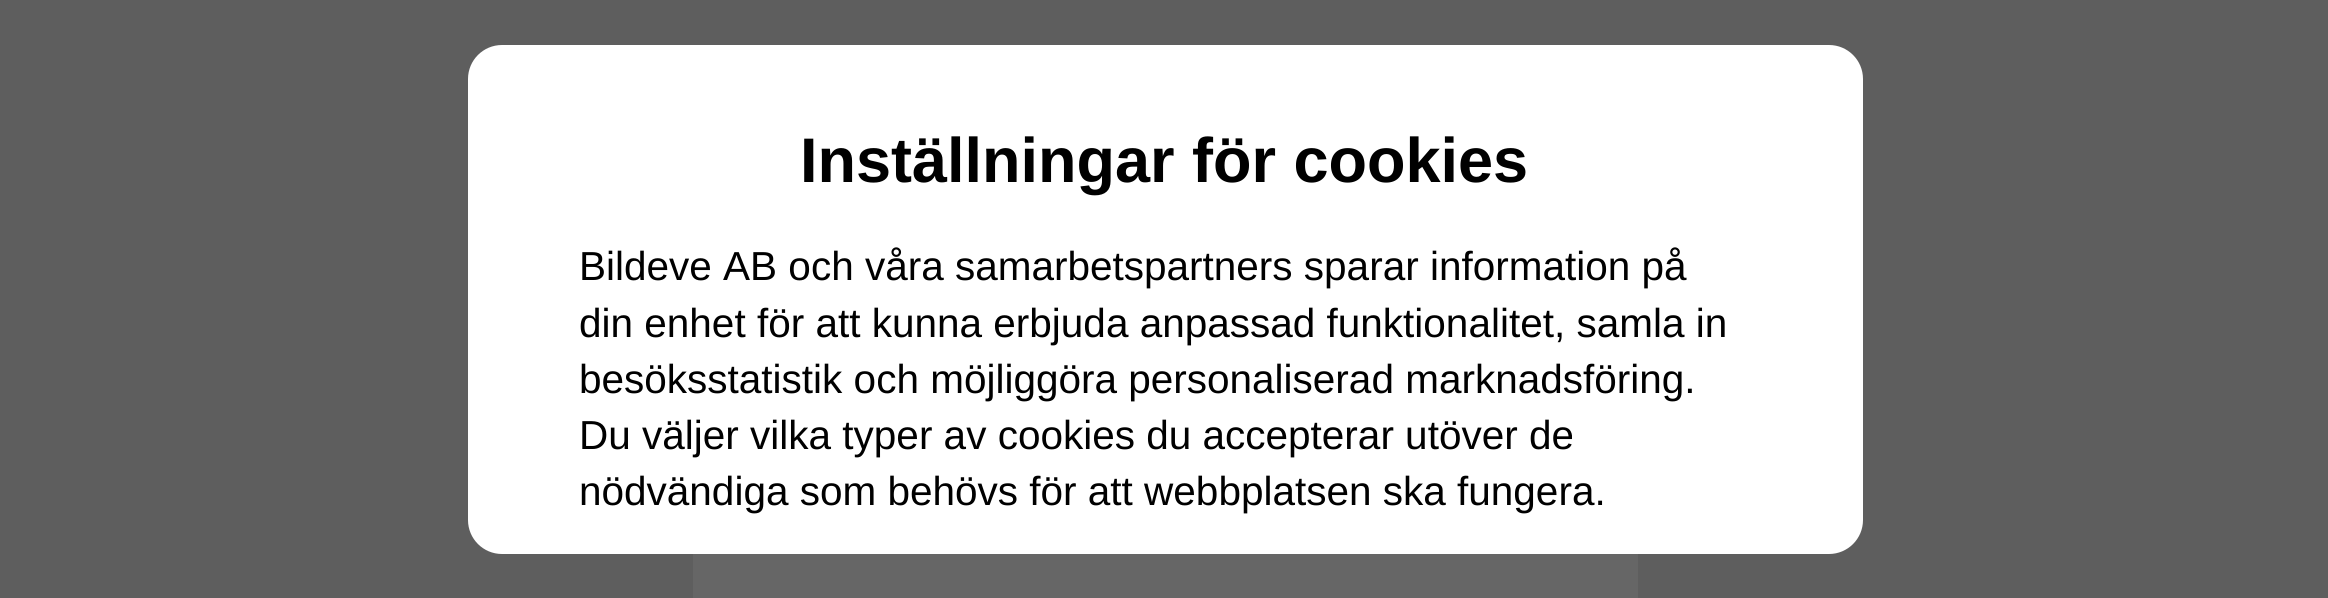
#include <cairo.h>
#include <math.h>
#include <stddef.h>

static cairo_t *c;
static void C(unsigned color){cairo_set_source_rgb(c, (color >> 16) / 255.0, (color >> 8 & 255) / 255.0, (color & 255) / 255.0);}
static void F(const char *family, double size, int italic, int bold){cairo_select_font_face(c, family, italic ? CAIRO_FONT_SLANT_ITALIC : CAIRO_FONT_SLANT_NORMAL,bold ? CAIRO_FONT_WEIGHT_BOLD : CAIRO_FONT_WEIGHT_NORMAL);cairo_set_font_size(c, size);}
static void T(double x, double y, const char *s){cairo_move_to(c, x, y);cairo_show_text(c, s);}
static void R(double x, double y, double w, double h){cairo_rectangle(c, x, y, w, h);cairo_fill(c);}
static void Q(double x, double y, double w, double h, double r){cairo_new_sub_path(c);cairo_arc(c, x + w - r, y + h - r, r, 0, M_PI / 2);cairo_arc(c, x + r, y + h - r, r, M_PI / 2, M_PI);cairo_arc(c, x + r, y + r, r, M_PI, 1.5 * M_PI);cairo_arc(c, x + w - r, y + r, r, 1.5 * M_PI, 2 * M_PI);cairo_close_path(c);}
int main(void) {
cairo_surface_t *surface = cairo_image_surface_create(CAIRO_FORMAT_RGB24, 2328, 598);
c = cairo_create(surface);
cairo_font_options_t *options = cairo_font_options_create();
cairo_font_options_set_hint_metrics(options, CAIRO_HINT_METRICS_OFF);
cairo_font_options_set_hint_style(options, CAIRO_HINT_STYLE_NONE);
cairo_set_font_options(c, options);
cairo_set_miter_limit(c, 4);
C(0x5e5e5e);
cairo_paint(c);
C(0xffffff);
Q(468,45,1395,509,34);
cairo_fill(c);
F("Liberation Sans",63,0,1);
C(0x000000);
T(800,182,"Inställningar för cookies");
F("Liberation Sans",40.5,0,0);
T(579,280,"Bildeve AB och våra samarbetspartners sparar information på");
T(579,337,"din enhet för att kunna erbjuda anpassad funktionalitet, samla in");
T(579,393,"besöksstatistik och möjliggöra personaliserad marknadsföring.");
T(579,449,"Du väljer vilka typer av cookies du accepterar utöver de");
T(579,505,"nödvändiga som behövs för att webbplatsen ska fungera.");
C(0x666666);
R(693,554,945,44);
cairo_surface_write_to_png(surface, "o.png");
cairo_font_options_destroy(options);
cairo_destroy(c);
cairo_surface_destroy(surface);
return 0;
}
